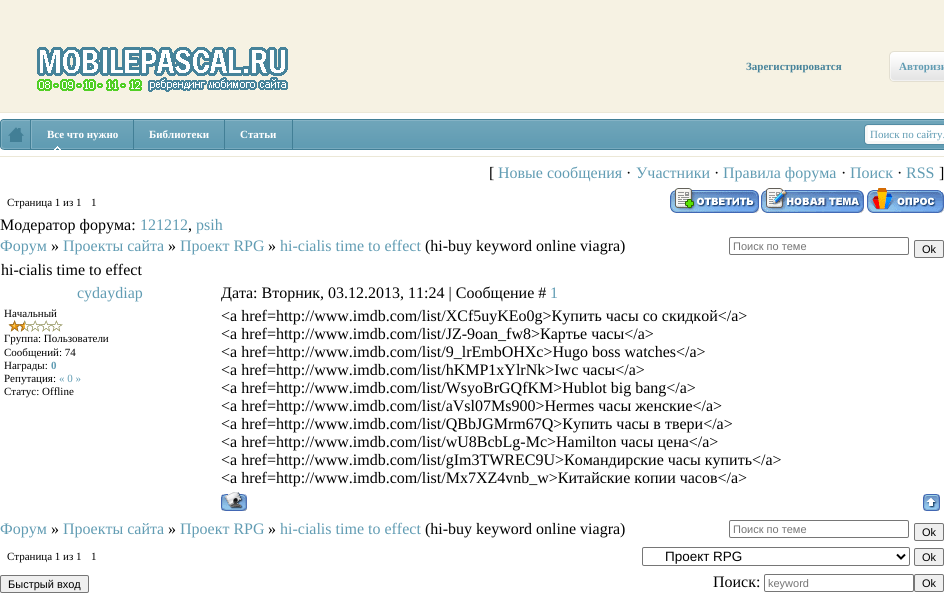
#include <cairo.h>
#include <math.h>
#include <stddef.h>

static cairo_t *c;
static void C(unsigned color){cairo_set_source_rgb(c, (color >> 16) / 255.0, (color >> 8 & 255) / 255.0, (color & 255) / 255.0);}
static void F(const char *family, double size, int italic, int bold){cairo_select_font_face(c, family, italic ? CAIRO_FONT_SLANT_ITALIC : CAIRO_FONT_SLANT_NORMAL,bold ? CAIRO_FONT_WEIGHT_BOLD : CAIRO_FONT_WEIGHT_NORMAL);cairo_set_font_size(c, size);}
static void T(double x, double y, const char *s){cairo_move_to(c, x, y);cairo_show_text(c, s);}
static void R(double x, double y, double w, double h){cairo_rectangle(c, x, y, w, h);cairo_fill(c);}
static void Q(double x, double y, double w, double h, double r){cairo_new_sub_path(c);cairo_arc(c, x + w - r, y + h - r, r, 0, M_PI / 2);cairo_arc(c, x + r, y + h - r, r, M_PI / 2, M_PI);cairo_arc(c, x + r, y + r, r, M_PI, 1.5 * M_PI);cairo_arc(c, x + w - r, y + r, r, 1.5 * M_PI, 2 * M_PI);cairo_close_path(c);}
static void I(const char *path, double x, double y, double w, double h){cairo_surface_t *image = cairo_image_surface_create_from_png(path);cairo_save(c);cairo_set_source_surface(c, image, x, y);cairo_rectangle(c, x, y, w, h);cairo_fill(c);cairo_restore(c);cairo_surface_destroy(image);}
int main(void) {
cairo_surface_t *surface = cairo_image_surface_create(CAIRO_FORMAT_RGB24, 944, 606);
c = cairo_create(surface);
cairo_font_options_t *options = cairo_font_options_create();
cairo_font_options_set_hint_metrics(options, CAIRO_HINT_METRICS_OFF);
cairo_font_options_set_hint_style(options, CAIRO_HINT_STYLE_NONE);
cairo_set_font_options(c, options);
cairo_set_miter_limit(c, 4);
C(0xffffff);
cairo_paint(c);
I("1.png",0,0,944,157);
I("2.png",37,47,251,45);
F("Liberation Serif",11,0,1);
C(0x46839a);
T(746,70,"Зарегистрироватся");
I("3.png",889,51,55,31);
C(0x619cb3);
T(899,70,"Авторизи");
I("4.png",32,119,912,31);
I("5.png",0,119,32,31);
C(0x427f96);
R(133,120,1,29);
C(0xffffff);
T(47,138,"Все что нужно");
C(0x427f96);
R(224,120,1,29);
C(0xffffff);
T(149,138,"Библиотеки");
C(0x427f96);
R(292,120,1,29);
C(0xffffff);
T(240,138,"Статьи");
I("6.png",864,124,80,21);
R(868,126,76,15);
F("Liberation Serif",11,0,0);
C(0x619cb3);
T(870,138,"Поиск по сайту.");
I("7.png",54,146,7,4);
F("Liberation Serif",16,0,0);
C(0x000000);
T(489,178,"[");
C(0x619cb3);
T(498,178,"Новые сообщения");
C(0x000000);
T(626,178,"·");
C(0x619cb3);
T(636,178,"Участники");
C(0x000000);
T(714,178,"·");
C(0x619cb3);
T(723,178,"Правила форума");
C(0x000000);
T(841,178,"·");
C(0x619cb3);
T(850,178,"Поиск");
C(0x000000);
T(897,178,"·");
C(0x619cb3);
T(906,178,"RSS");
C(0x000000);
T(939,178,"]");
F("Liberation Serif",11,0,0);
T(7,206,"Страница 1 из 1");
T(91,206,"1");
I("8.png",670,188,89,25);
I("9.png",761,188,103,25);
I("10.png",867,188,77,25);
F("Liberation Serif",16,0,0);
T(0,230,"Модератор форума:");
C(0x619cb3);
T(140,230,"121212");
T(196,230,"psih");
C(0x000000);
T(188,230,",");
C(0x619cb3);
T(0,251,"Форум");
C(0x000000);
T(51,251,"»");
C(0x619cb3);
T(63,251,"Проекты сайта");
C(0x000000);
T(168,251,"»");
C(0x619cb3);
T(180,251,"Проект RPG");
C(0x000000);
T(268,251,"»");
C(0x619cb3);
T(280,251,"hi-cialis time to effect");
C(0x000000);
T(425,251,"(hi-buy keyword online viagra)");
Q(729.5,237.5,179,17,1.5);
C(0x767676);
cairo_set_line_width(c,1);
cairo_stroke(c);
F("Liberation Sans",11,0,0);
C(0x757575);
T(733,250,"Поиск по теме");
C(0xefefef);
Q(914.5,240.5,29,17,1.5);
cairo_fill_preserve(c);
C(0x767676);
cairo_stroke(c);
C(0x000000);
T(922,253,"Ok");
F("Liberation Serif",16,0,0);
T(1,275,"hi-cialis time to effect");
C(0x619cb3);
T(77,298,"cydaydiap");
C(0x000000);
T(221,298,"Дата: Вторник, 03.12.2013, 11:24 | Сообщение #");
C(0x619cb3);
T(550,298,"1");
F("Liberation Serif",11,0,0);
C(0x000000);
T(4,317,"Начальный");
I("11.png",8,320,55,12);
T(4,342,"Группа: Пользователи");
T(4,356,"Сообщений: 74");
T(4,369,"Награды:");
F("Liberation Serif",11,0,1);
C(0x619cb3);
T(51,369,"0");
F("Liberation Serif",11,0,0);
C(0x000000);
T(4,382,"Репутация:");
C(0x619cb3);
T(59,382,"« 0 »");
C(0x000000);
T(4,395,"Статус: Offline");
F("Liberation Serif",16,0,0);
T(221,321,"<a href=http://www.imdb.com/list/XCf5uyKEo0g>Купить часы со скидкой</a>");
T(221,339,"<a href=http://www.imdb.com/list/JZ-9oan_fw8>Картье часы</a>");
T(221,357,"<a href=http://www.imdb.com/list/9_lrEmbOHXc>Hugo boss watches</a>");
T(221,375,"<a href=http://www.imdb.com/list/hKMP1xYlrNk>Iwc часы</a>");
T(221,393,"<a href=http://www.imdb.com/list/WsyoBrGQfKM>Hublot big bang</a>");
T(221,411,"<a href=http://www.imdb.com/list/aVsl07Ms900>Hermes часы женские</a>");
T(221,429,"<a href=http://www.imdb.com/list/QBbJGMrm67Q>Купить часы в твери</a>");
T(221,447,"<a href=http://www.imdb.com/list/wU8BcbLg-Mc>Hamilton часы цена</a>");
T(221,465,"<a href=http://www.imdb.com/list/gIm3TWREC9U>Командирские часы купить</a>");
T(221,483,"<a href=http://www.imdb.com/list/Mx7XZ4vnb_w>Китайские копии часов</a>");
I("12.png",221,492,26,19);
I("13.png",923,494,17,17);
C(0x619cb3);
T(0,534,"Форум");
C(0x000000);
T(51,534,"»");
C(0x619cb3);
T(63,534,"Проекты сайта");
C(0x000000);
T(168,534,"»");
C(0x619cb3);
T(180,534,"Проект RPG");
C(0x000000);
T(268,534,"»");
C(0x619cb3);
T(280,534,"hi-cialis time to effect");
C(0x000000);
T(425,534,"(hi-buy keyword online viagra)");
Q(729.5,520.5,179,17,1.5);
C(0x767676);
cairo_stroke(c);
F("Liberation Sans",11,0,0);
C(0x757575);
T(733,533,"Поиск по теме");
C(0xefefef);
Q(914.5,523.5,29,17,1.5);
cairo_fill_preserve(c);
C(0x767676);
cairo_stroke(c);
C(0x000000);
T(922,536,"Ok");
F("Liberation Serif",11,0,0);
T(7,560,"Страница 1 из 1");
T(91,560,"1");
Q(642.5,547.5,267,18,1.5);
C(0x767676);
cairo_stroke(c);
cairo_new_path(c);
cairo_move_to(c,897,554.5);
cairo_line_to(c,901,558.5);
cairo_line_to(c,905,554.5);
C(0x000000);
cairo_set_line_width(c,2);
cairo_stroke(c);
F("Liberation Sans",13.5,0,0);
T(665,561,"Проект RPG");
C(0xefefef);
Q(914.5,548.5,29,17,1.5);
cairo_fill_preserve(c);
C(0x767676);
cairo_set_line_width(c,1);
cairo_stroke(c);
F("Liberation Sans",11,0,0);
C(0x000000);
T(922,561,"Ok");
C(0xefefef);
Q(.5,575.5,88,17,1.5);
cairo_fill_preserve(c);
C(0x767676);
cairo_stroke(c);
C(0x000000);
T(8,588,"Быстрый вход");
F("Liberation Serif",16,0,0);
T(713,587,"Поиск:");
Q(764.5,574.5,149,17,1.5);
C(0x767676);
cairo_stroke(c);
F("Liberation Sans",11,0,0);
C(0x757575);
T(768,587,"keyword");
C(0xefefef);
Q(914.5,574.5,29,17,1.5);
cairo_fill_preserve(c);
C(0x767676);
cairo_stroke(c);
C(0x000000);
T(922,587,"Ok");
cairo_surface_write_to_png(surface, "o.png");
cairo_font_options_destroy(options);
cairo_destroy(c);
cairo_surface_destroy(surface);
return 0;
}
